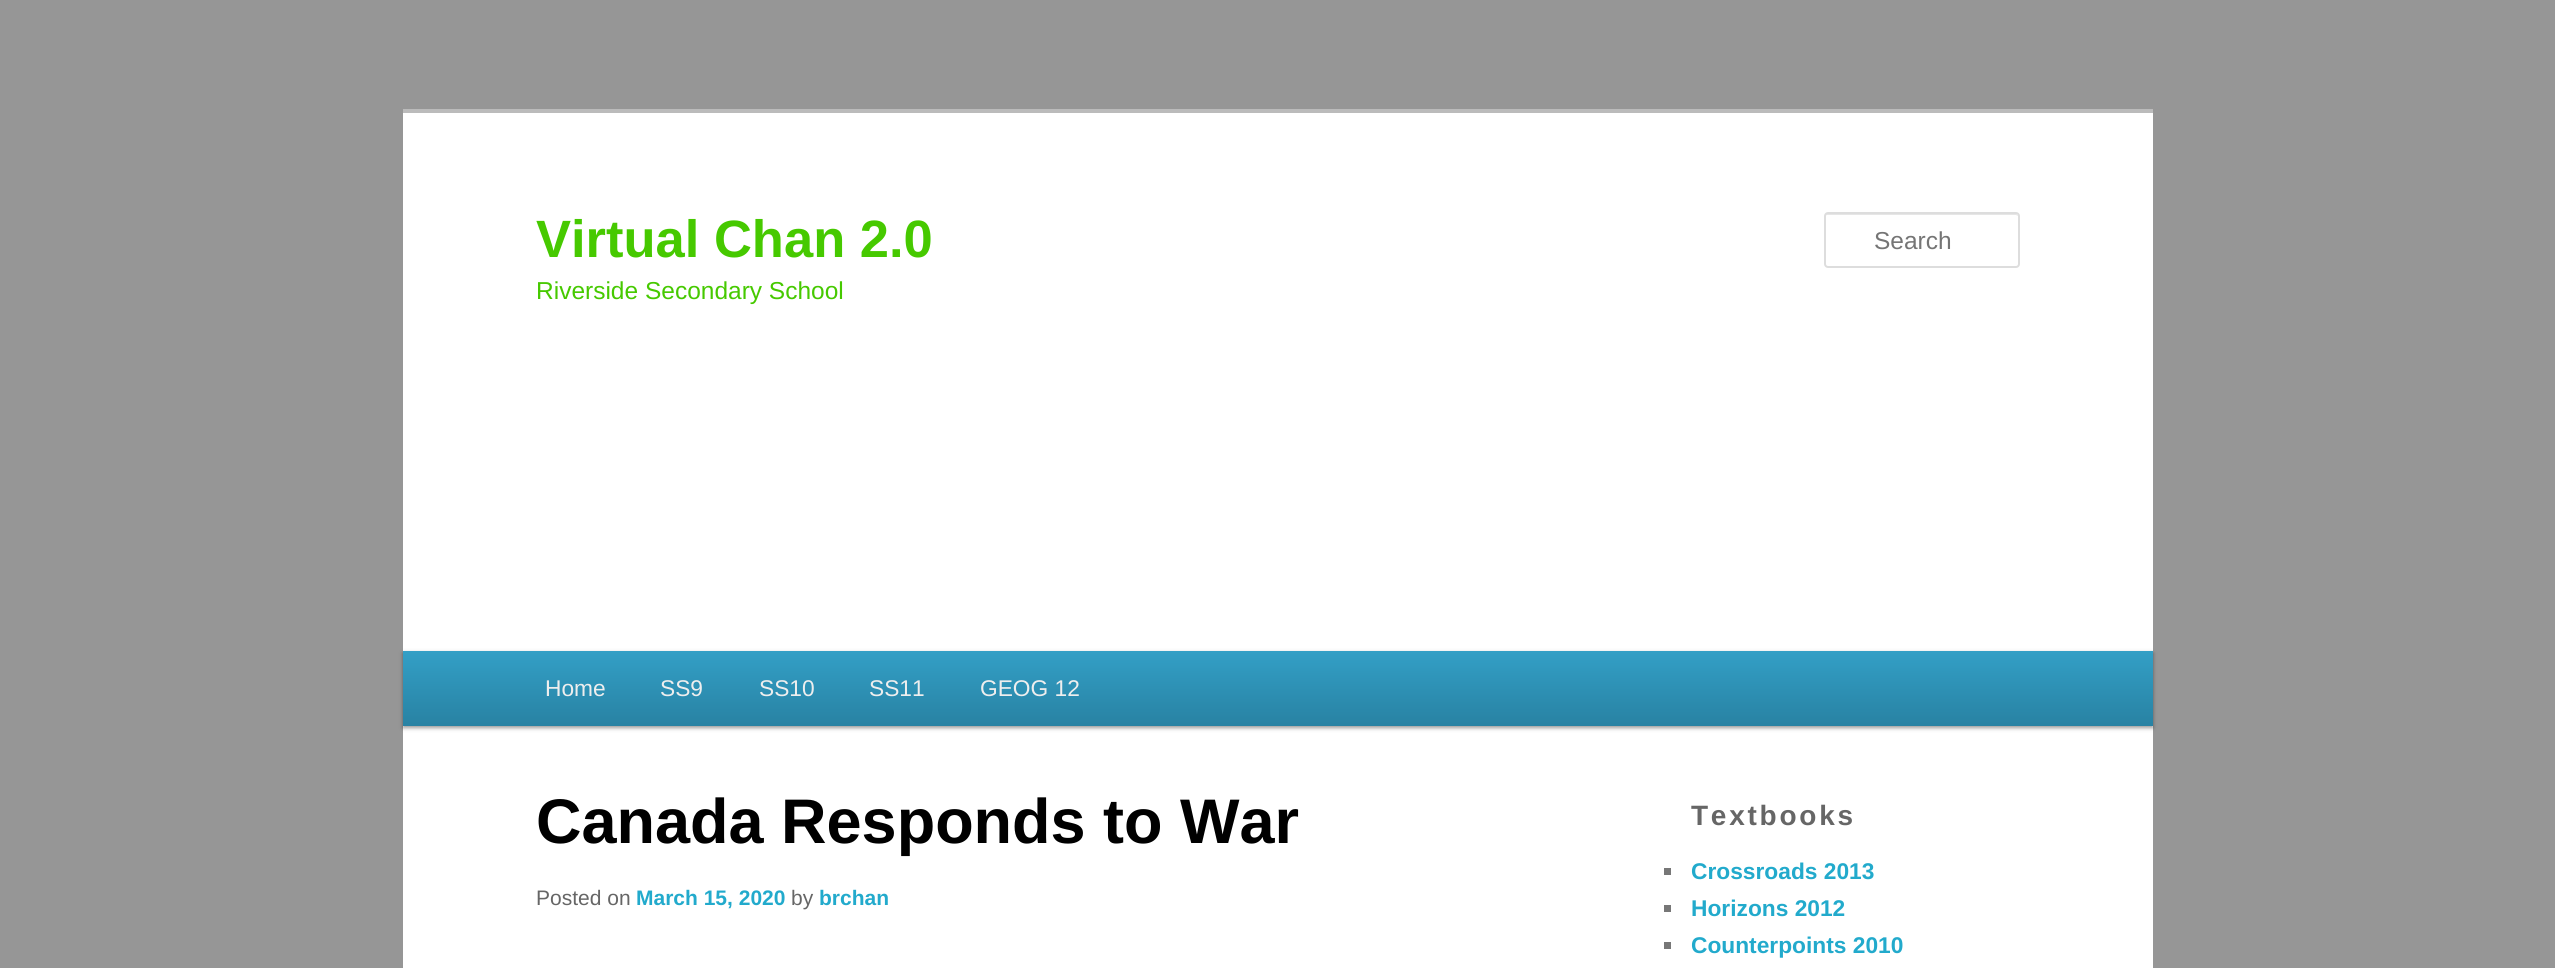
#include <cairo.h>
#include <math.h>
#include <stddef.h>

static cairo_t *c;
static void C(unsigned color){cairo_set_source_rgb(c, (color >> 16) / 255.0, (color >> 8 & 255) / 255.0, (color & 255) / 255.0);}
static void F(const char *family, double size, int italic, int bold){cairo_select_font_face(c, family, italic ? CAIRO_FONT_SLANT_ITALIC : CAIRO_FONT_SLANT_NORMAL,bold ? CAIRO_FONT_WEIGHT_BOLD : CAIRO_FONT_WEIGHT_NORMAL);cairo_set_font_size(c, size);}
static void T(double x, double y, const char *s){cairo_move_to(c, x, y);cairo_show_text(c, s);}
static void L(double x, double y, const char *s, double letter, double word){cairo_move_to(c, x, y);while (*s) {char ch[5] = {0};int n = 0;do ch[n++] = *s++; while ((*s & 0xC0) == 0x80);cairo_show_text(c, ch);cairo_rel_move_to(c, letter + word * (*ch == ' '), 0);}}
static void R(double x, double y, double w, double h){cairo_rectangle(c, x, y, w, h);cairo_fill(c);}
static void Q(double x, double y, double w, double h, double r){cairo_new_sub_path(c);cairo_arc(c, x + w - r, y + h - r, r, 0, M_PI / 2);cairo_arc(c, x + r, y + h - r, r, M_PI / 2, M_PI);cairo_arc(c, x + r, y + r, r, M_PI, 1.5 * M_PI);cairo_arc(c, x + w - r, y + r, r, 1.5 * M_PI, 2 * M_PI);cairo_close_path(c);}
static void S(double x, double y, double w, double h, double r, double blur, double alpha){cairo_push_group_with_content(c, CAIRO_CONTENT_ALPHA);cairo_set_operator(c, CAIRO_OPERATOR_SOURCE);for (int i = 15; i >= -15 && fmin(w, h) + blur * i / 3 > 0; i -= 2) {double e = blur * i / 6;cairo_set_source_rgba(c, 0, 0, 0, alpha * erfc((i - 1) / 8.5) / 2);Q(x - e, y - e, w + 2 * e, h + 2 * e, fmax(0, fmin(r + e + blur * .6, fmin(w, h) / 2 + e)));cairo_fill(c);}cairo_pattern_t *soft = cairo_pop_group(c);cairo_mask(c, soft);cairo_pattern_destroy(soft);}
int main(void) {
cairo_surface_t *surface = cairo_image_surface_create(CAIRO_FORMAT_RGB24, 2555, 968);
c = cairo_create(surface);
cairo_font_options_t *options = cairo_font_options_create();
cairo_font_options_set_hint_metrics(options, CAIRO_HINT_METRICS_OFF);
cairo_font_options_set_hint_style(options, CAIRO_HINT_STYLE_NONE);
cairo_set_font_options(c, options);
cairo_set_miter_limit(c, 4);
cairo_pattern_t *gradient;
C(0x969696);
cairo_paint(c);
C(0xffffff);
R(403,113,1750,855);
C(0xbbbbbb);
R(403,109,1750,4);
F("Liberation Sans",52.5,0,1);
C(0x46c900);
T(536,257,"Virtual Chan 2.0");
F("Liberation Sans",24.5,0,0);
T(536,299,"Riverside Secondary School");
C(0xe6e6e6);
cairo_new_path(c);
cairo_move_to(c,1827,215);
cairo_line_to(c,2016,215);
cairo_line_to(c,2018,216);
cairo_line_to(c,2018,217);
cairo_line_to(c,2018,216);
cairo_curve_to(c,2018,215,2017,214,2016,214);
cairo_line_to(c,1827,214);
cairo_curve_to(c,1826,214,1825,215,1825,216);
cairo_line_to(c,1825,217);
cairo_curve_to(c,1825,216,1826,215,1827,215);
cairo_close_path(c);
cairo_fill(c);
Q(1825,213,194,54,3);
C(0xdddddd);
cairo_stroke(c);
C(0x757575);
T(1874,249,"Search");
C(0x000000);
S(403,653,1750,75,0,2,.4);
gradient = cairo_pattern_create_linear(1278,651,1278,726);
cairo_pattern_add_color_stop_rgba(gradient,0,0.2,0.624,0.776,1);
cairo_pattern_add_color_stop_rgba(gradient,1,0.157,0.51,0.639,1);
cairo_set_source(c,gradient);
cairo_pattern_destroy(gradient);
R(403,651,1750,75);
F("Liberation Sans",22.75,0,0);
C(0xeeeeee);
T(545,696,"Home");
T(660,696,"SS9");
T(759,696,"SS10");
T(869,696,"SS11");
T(980,696,"GEOG 12");
F("Liberation Sans",63,0,1);
C(0x000000);
T(536,843,"Canada Responds to War");
F("Liberation Sans",21,0,0);
C(0x666666);
T(536,905,"Posted on");
F("Liberation Sans",21,0,1);
C(0x22aacc);
T(636,905,"March 15, 2020");
F("Liberation Sans",21,0,0);
C(0x666666);
T(791,905,"by");
F("Liberation Sans",21,0,1);
C(0x22aacc);
T(819,905,"brchan");
F("Liberation Sans",28,0,1);
C(0x666666);
L(1691,825,"Textbooks",2.75,0);
C(0x777777);
R(1664,868,7,7);
F("Liberation Sans",22.75,0,1);
C(0x22aacc);
T(1691,879,"Crossroads 2013");
C(0x777777);
R(1664,905,7,7);
C(0x22aacc);
T(1691,916,"Horizons 2012");
C(0x777777);
R(1664,942,7,7);
C(0x22aacc);
T(1691,953,"Counterpoints 2010");
cairo_surface_write_to_png(surface, "o.png");
cairo_font_options_destroy(options);
cairo_destroy(c);
cairo_surface_destroy(surface);
return 0;
}
